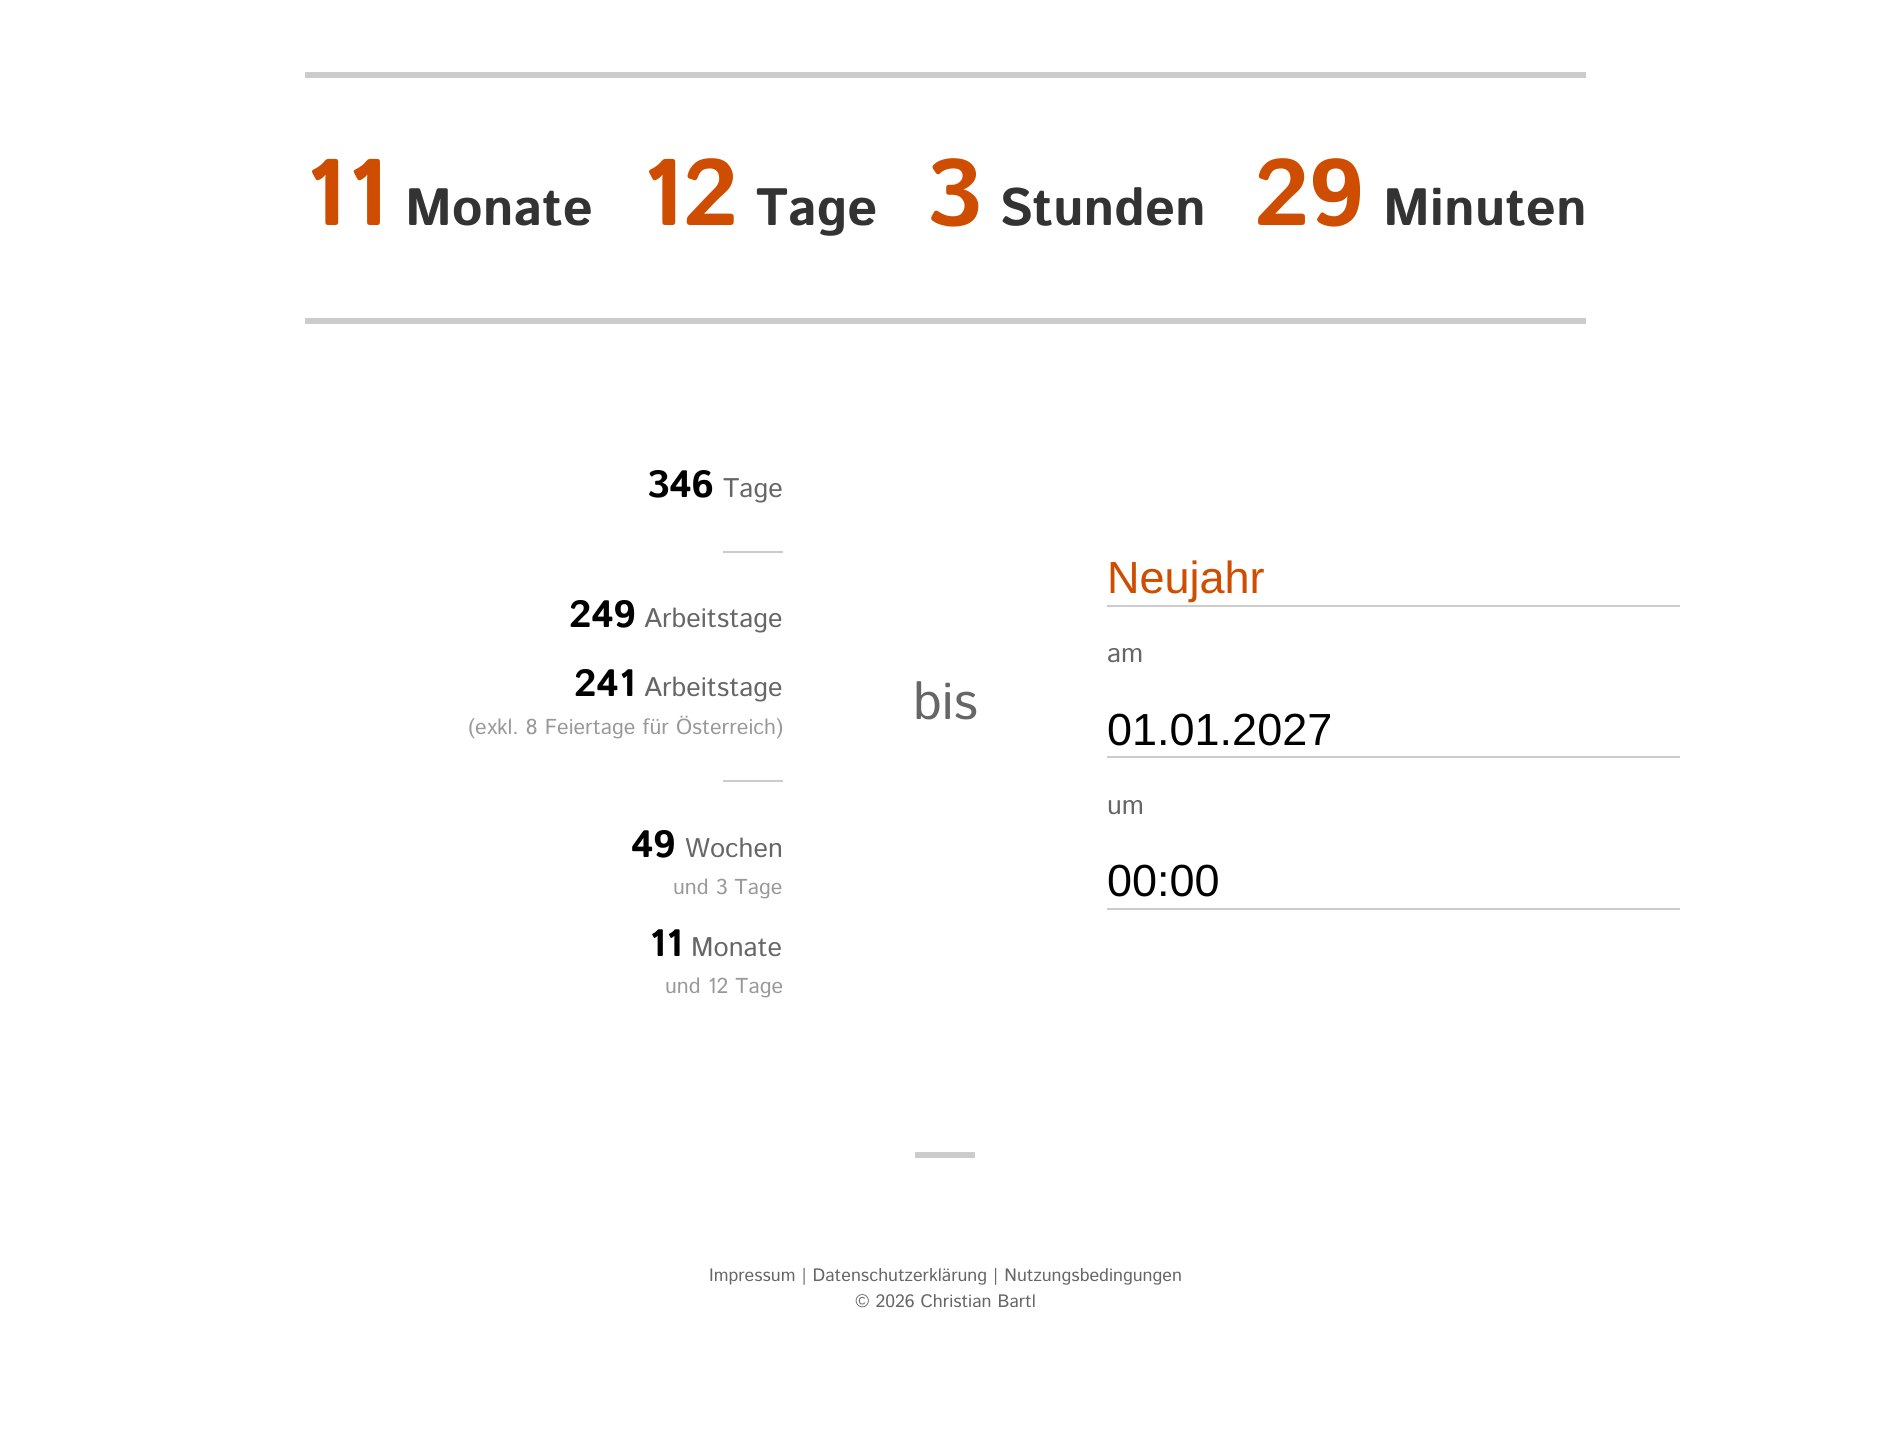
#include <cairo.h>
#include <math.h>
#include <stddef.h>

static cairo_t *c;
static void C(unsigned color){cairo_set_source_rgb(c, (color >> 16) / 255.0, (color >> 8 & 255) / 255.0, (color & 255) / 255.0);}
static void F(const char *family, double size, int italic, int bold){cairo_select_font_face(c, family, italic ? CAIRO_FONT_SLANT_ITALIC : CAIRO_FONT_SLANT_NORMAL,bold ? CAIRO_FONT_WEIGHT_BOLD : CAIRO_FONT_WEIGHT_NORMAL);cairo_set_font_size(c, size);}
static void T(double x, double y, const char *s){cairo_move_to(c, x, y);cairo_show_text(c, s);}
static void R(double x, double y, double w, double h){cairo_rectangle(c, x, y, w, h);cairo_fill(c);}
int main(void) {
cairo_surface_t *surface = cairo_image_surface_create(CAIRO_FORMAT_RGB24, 1890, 1453);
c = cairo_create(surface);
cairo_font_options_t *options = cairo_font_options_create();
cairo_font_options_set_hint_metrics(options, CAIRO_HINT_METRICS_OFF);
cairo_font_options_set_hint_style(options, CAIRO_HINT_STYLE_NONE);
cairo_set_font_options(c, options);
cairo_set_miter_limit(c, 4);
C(0xffffff);
cairo_paint(c);
C(0xcccccc);
R(305,72,1281,6);
R(305,318,1281,6);
F("Istok Web",94,0,1);
C(0xce4d00);
T(304,225,"11");
F("Istok Web",52.5,0,1);
C(0x333333);
T(405,225,"Monate");
F("Istok Web",94,0,1);
C(0xce4d00);
T(641,225,"12");
F("Istok Web",52.5,0,1);
C(0x333333);
T(756,225,"Tage");
F("Istok Web",94,0,1);
C(0xce4d00);
T(926,225,"3");
F("Istok Web",52.5,0,1);
C(0x333333);
T(999,225,"Stunden");
F("Istok Web",94,0,1);
C(0xce4d00);
T(1254,225,"29");
F("Istok Web",52.5,0,1);
C(0x333333);
T(1383,225,"Minuten");
F("Istok Web",38,0,1);
C(0x000000);
T(647,497,"346");
F("Istok Web",27,0,0);
C(0x666666);
T(723,497,"Tage");
C(0xcccccc);
R(723,551,60,2);
F("Istok Web",38,0,1);
C(0x000000);
T(569,627,"249");
F("Istok Web",27,0,0);
C(0x666666);
T(644,627,"Arbeitstage");
F("Istok Web",38,0,1);
C(0x000000);
T(574,696,"241");
F("Istok Web",27,0,0);
C(0x666666);
T(644,696,"Arbeitstage");
F("Istok Web",21.6,0,0);
C(0x999999);
T(468,734,"(exkl. 8 Feiertage für Österreich)");
C(0xcccccc);
R(723,780,60,2);
F("Istok Web",38,0,1);
C(0x000000);
T(631,857,"49");
F("Istok Web",27,0,0);
C(0x666666);
T(685,857,"Wochen");
F("Istok Web",21.6,0,0);
C(0x999999);
T(673,894,"und 3 Tage");
F("Istok Web",38,0,1);
C(0x000000);
T(649,956,"11");
F("Istok Web",27,0,0);
C(0x666666);
T(691,956,"Monate");
F("Istok Web",21.6,0,0);
C(0x999999);
T(665,993,"und 12 Tage");
F("Istok Web",52.5,0,0);
C(0x666666);
T(913,719,"bis");
C(0xcccccc);
R(1107,605,573,2);
F("Liberation Sans",45,0,0);
C(0xce4d00);
T(1107,593,"Neujahr");
F("Istok Web",27,0,0);
C(0x666666);
T(1107,662,"am");
C(0xcccccc);
R(1107,756,573,2);
F("Liberation Sans",45,0,0);
C(0x000000);
T(1107,745,"01.01.2027");
F("Istok Web",27,0,0);
C(0x666666);
T(1107,814,"um");
C(0xcccccc);
R(1107,908,573,2);
F("Liberation Sans",45,0,0);
C(0x000000);
T(1107,896,"00:00");
C(0xcccccc);
R(915,1152,60,6);
F("Istok Web",18,0,0);
C(0x666666);
T(709,1281,"Impressum | Datenschutzerklärung | Nutzungsbedingungen");
T(855,1307,"© 2026 Christian Bartl");
cairo_surface_write_to_png(surface, "o.png");
cairo_font_options_destroy(options);
cairo_destroy(c);
cairo_surface_destroy(surface);
return 0;
}
